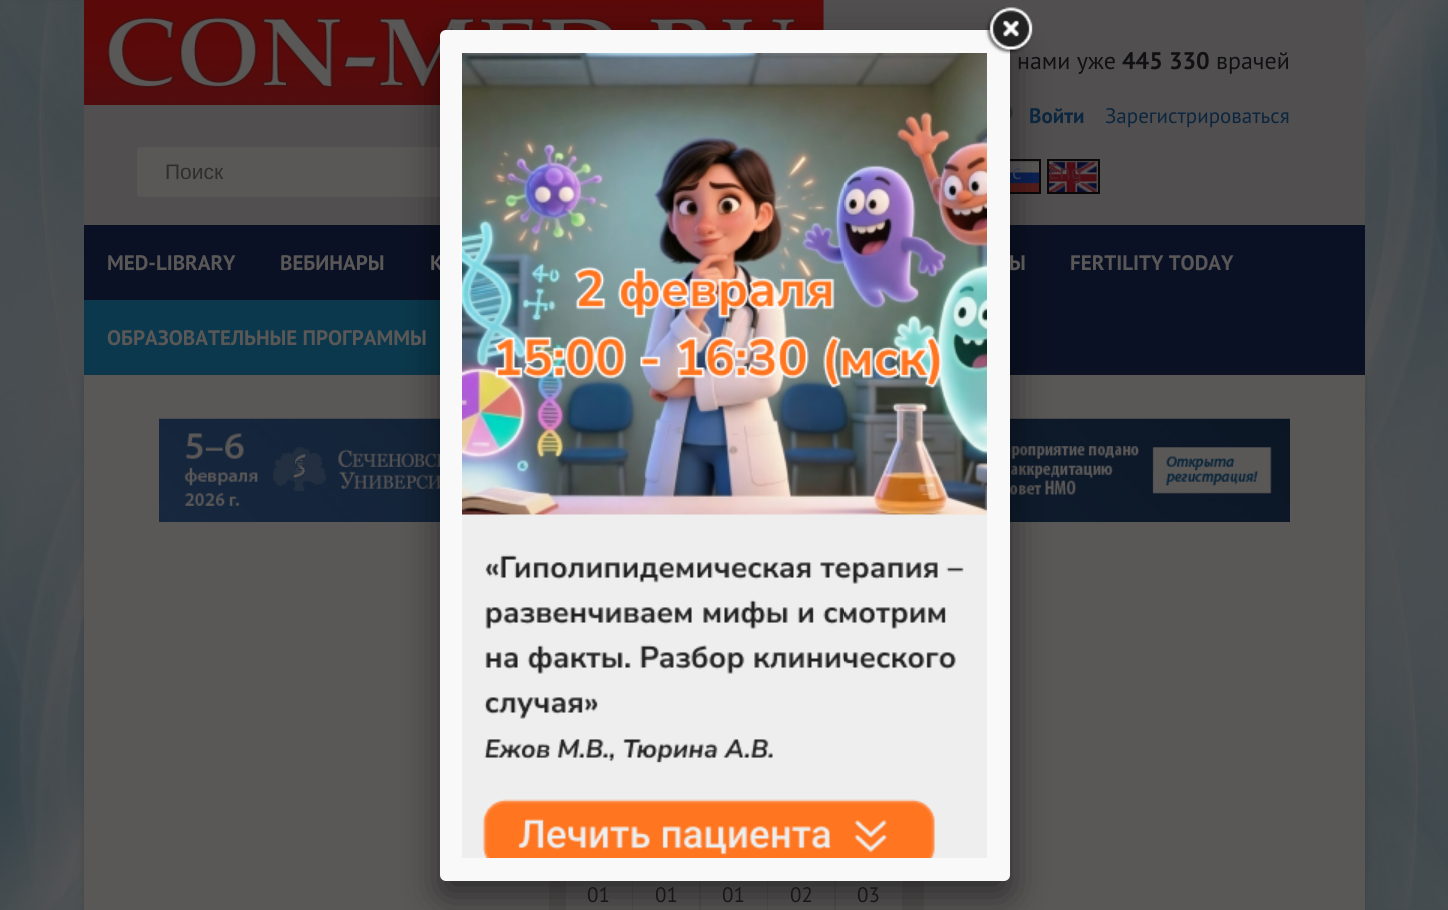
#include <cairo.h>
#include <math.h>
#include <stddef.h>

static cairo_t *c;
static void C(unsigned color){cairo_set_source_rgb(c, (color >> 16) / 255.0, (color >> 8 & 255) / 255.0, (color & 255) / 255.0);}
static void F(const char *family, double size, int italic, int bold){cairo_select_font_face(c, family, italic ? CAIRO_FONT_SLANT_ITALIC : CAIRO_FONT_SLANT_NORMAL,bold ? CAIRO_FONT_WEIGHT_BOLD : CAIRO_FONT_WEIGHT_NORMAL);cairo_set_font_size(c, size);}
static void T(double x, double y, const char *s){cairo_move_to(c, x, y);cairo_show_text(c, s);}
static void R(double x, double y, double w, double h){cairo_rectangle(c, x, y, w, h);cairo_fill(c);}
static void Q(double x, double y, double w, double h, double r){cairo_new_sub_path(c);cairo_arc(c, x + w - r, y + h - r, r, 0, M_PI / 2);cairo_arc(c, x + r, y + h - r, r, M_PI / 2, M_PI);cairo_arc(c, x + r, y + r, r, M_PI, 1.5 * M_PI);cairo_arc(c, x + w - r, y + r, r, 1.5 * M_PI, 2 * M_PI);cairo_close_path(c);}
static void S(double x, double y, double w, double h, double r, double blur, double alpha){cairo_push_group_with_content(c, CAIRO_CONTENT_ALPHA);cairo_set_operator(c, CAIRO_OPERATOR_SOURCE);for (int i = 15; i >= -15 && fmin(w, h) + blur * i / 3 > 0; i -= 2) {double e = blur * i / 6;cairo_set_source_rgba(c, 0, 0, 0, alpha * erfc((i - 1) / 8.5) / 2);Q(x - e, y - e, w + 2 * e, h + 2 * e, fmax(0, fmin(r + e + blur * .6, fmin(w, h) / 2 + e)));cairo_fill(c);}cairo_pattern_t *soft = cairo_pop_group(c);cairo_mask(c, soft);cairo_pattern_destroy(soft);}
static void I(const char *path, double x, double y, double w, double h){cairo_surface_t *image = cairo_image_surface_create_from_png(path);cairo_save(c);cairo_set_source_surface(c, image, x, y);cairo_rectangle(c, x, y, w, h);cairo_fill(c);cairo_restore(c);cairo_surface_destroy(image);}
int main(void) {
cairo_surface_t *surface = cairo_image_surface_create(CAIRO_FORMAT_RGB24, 1448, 910);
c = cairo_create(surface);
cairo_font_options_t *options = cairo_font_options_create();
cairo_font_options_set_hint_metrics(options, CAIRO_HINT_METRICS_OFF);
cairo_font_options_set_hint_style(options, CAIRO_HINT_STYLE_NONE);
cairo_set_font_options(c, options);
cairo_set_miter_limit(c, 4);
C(0xffffff);
cairo_paint(c);
I("1.png",0,0,1448,910);
C(0x514f50);
R(84,0,1281,225);
I("4.png",84,0,740,105);
C(0x5a5757);
Q(137,147,633,50,3);
cairo_fill(c);
I("5.png",1010,106,3,13);
I("6.png",1010,161,29,31);
cairo_rectangle(c,990,160,50,33);
C(0x0b0808);
cairo_stroke(c);
I("7.png",1049,161,49,31);
cairo_rectangle(c,1048,160,51,33);
cairo_stroke(c);
C(0x0b1124);
R(84,225,1281,150);
C(0x0b384c);
R(84,300,356,75);
C(0x2b2a2c);
S(84,377,1281,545,0,4,.31);
C(0x5a5757);
R(84,375,1281,535);
I("8.png",159,418,1131,104);
C(0x535050);
R(549,881,375,29);
C(0x5a5757);
R(566,881,66,29);
R(633,881,66,29);
R(701,881,66,29);
R(768,881,66,29);
R(836,881,66,29);
C(0x000000);
S(440,45,570,851,6,19,.5);
F("PT Sans",21,0,1);
C(0x5a5757);
T(430,270,"К");
T(1009,270,"Ы");
C(0xf9f9f9);
Q(440,30,570,851,6);
cairo_fill(c);
I("3.png",462,53,525,805);
I("2.png",985,7,48,47);
F("Liberation Sans",21,0,0);
C(0x2f2d2d);
T(165,179,"Поиск");
F("PT Sans",24,0,0);
C(0x111113);
T(1017,69,"нами уже");
F("PT Sans",24,0,1);
T(1122,69,"445 330");
F("PT Sans",24,0,0);
T(1216,69,"врачей");
F("PT Sans",21,0,1);
C(0x0b263f);
T(1029,123,"Войти");
F("PT Sans",21,0,0);
T(1105,123,"Зарегистрироваться");
C(0x353d55);
T(1012,179,"с");
C(0x472028);
T(1048,179,"Eng");
F("PT Sans",21,0,1);
C(0x5a5757);
T(107,270,"MED-LIBRARY");
T(280,270,"ВЕБИНАРЫ");
T(1070,270,"FERTILITY TODAY");
T(107,345,"ОБРАЗОВАТЕЛЬНЫЕ ПРОГРАММЫ");
F("PT Sans",21,0,0);
C(0x17171a);
T(587,902,"01");
T(655,902,"01");
T(722,902,"01");
T(790,902,"02");
T(857,902,"03");
cairo_surface_write_to_png(surface, "o.png");
cairo_font_options_destroy(options);
cairo_destroy(c);
cairo_surface_destroy(surface);
return 0;
}
